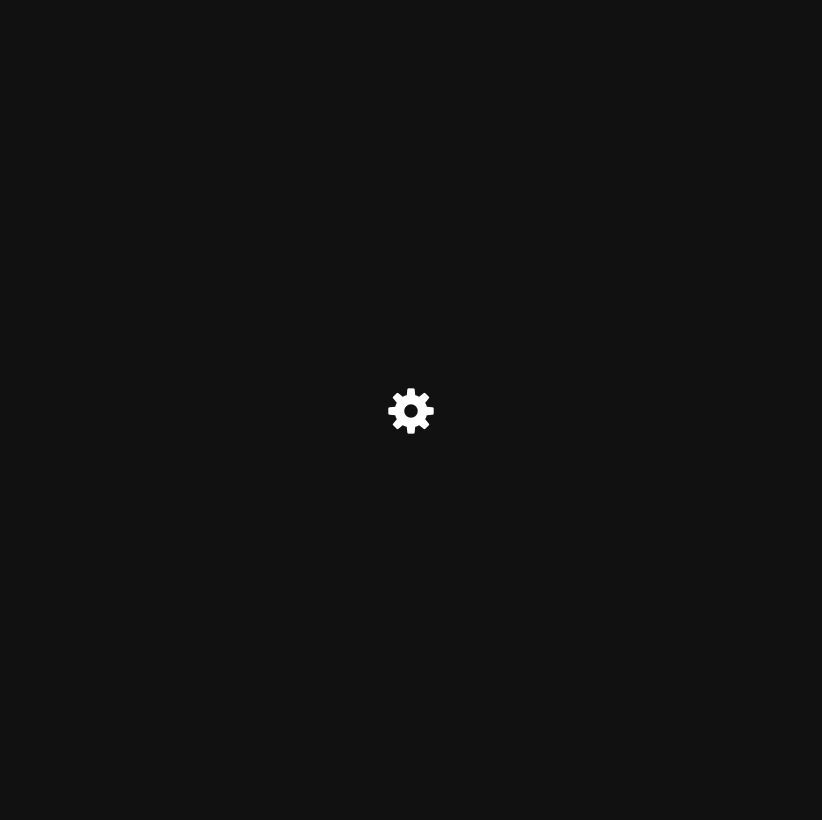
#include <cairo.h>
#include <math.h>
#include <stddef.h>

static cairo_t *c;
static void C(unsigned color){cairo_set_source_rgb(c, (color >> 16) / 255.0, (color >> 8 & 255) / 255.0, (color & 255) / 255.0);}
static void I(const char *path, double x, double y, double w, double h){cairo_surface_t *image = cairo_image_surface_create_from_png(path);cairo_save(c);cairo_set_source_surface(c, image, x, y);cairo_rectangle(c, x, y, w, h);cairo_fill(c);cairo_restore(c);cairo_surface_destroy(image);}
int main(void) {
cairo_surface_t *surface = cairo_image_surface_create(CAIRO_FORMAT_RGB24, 822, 820);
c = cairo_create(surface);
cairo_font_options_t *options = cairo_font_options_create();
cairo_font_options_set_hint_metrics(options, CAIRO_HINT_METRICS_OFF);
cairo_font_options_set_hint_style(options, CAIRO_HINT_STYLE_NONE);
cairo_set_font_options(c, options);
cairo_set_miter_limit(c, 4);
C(0x111111);
cairo_paint(c);
I("1.png",388,388,46,46);
cairo_surface_write_to_png(surface, "o.png");
cairo_font_options_destroy(options);
cairo_destroy(c);
cairo_surface_destroy(surface);
return 0;
}
